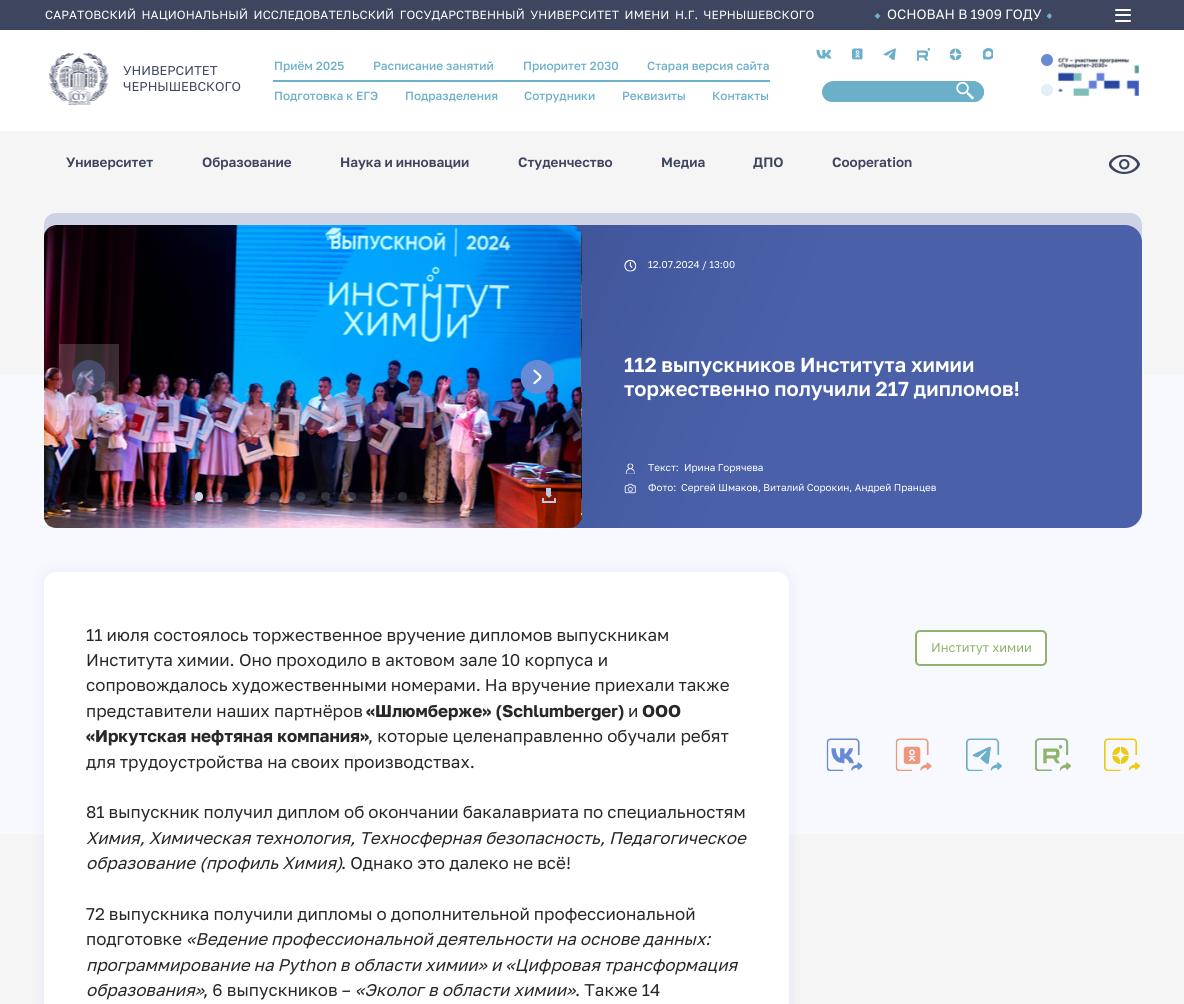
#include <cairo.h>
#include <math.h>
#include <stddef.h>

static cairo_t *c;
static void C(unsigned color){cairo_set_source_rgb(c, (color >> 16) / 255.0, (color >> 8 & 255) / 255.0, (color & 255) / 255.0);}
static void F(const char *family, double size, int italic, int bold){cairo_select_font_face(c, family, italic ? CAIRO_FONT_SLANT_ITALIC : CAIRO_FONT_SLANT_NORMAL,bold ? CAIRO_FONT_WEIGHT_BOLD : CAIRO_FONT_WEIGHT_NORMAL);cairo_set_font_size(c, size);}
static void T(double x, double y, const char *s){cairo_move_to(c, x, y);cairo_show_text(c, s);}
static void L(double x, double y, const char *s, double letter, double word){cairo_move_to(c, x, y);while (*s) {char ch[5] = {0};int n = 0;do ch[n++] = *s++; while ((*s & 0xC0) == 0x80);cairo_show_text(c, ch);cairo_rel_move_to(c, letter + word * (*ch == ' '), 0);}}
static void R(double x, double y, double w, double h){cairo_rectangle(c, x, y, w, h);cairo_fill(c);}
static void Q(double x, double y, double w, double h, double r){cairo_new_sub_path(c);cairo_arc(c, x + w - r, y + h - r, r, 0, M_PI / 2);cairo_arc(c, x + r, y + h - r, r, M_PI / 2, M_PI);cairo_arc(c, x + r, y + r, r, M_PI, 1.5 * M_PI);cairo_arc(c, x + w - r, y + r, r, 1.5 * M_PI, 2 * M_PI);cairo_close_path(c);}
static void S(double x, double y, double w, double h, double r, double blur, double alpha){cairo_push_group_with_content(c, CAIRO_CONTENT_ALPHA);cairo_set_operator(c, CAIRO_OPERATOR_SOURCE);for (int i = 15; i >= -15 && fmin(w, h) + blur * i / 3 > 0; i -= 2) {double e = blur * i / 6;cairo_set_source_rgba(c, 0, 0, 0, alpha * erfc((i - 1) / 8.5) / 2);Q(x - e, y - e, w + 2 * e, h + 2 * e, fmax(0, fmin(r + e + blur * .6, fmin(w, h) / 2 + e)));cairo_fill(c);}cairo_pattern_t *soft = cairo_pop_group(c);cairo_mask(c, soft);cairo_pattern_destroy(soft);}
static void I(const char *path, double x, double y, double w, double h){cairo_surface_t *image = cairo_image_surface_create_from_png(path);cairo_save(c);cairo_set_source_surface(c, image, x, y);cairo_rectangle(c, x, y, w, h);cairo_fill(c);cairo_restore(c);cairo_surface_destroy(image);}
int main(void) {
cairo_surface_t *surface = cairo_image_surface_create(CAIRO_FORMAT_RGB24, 1184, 1004);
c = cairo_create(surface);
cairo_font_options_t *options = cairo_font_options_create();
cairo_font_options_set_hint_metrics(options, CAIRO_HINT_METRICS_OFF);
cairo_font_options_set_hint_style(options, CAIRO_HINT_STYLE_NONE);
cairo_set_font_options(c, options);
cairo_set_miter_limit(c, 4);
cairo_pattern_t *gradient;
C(0xf5f5f5);
cairo_paint(c);
C(0xffffff);
R(0,30,1184,101);
C(0x3d455f);
R(0,0,1184,30);
F("Golos Text",11.85,0,0);
C(0xffffff);
L(45,19,"САРАТОВСКИЙ НАЦИОНАЛЬНЫЙ ИССЛЕДОВАТЕЛЬСКИЙ ГОСУДАРСТВЕННЫЙ УНИВЕРСИТЕТ ИМЕНИ Н.Г. ЧЕРНЫШЕВСКОГО",.08,2.5);
C(0x6cafc9);
cairo_new_path(c);
cairo_move_to(c,874.5,16);
cairo_line_to(c,877.5,13);
cairo_line_to(c,880.5,16);
cairo_line_to(c,877.5,19);
cairo_close_path(c);
cairo_fill(c);
F("Golos Text",13.5,0,0);
C(0xffffff);
T(887,19,"ОСНОВАН В 1909 ГОДУ");
C(0x6cafc9);
cairo_new_path(c);
cairo_move_to(c,1046.5,16);
cairo_line_to(c,1049.5,13);
cairo_line_to(c,1052,16);
cairo_line_to(c,1049.5,19);
cairo_close_path(c);
cairo_fill(c);
C(0xffffff);
Q(1115,9,16,2,1);
cairo_fill(c);
Q(1115,14,16,2,1);
cairo_fill(c);
Q(1115,20,16,2,1);
cairo_fill(c);
I("1.png",49,53,60,52);
F("Golos Text",12.75,0,0);
C(0x3d455f);
T(123,75,"УНИВЕРСИТЕТ");
T(123,91,"ЧЕРНЫШЕВСКОГO");
C(0x6cafc9);
R(273,80,497,2);
F("Golos Text Medium",11.85,0,0);
T(274,70,"Приём 2025");
T(373,70,"Расписание занятий");
T(523,70,"Приоритет 2030");
T(647,70,"Старая версия сайта");
T(274,100,"Подготовка к ЕГЭ");
T(405,100,"Подразделения");
T(524,100,"Сотрудники");
T(622,100,"Реквизиты");
T(712,100,"Контакты");
I("2.png",816,49,16,10);
I("3.png",852,48,11,12);
I("4.png",883,48,13,12);
I("5.png",916,48,14,13);
I("6.png",949,48,13,12);
I("7.png",982,48,11,12);
cairo_new_path(c);
cairo_move_to(c,834,81);
cairo_line_to(c,972,81);
cairo_curve_to(c,979,81,984,86,984,92);
cairo_curve_to(c,984,98,979,102,974,102);
cairo_line_to(c,832,102);
cairo_curve_to(c,827,102,822,98,822,92);
cairo_curve_to(c,822,86,827,81,834,81);
cairo_close_path(c);
cairo_fill(c);
cairo_save(c);
Q(822,81,162,23,11.5);
cairo_clip(c);
cairo_new_path(c);
cairo_move_to(c,957.5,81);
cairo_line_to(c,972.5,81);
cairo_curve_to(c,979,81,984,86,984,92.5);
cairo_line_to(c,984,91.5);
cairo_curve_to(c,984,97.5,979.5,102,973.5,102);
cairo_line_to(c,957.5,102);
cairo_curve_to(c,951.5,102,947,97.5,947,91.5);
cairo_curve_to(c,947,85.5,951.5,81,957.5,81);
cairo_close_path(c);
cairo_fill(c);
cairo_restore(c);
I("8.png",956,81,18,19);
C(0x668bd4);
cairo_arc(c,1047,60,6,0,2 * M_PI);
cairo_fill(c);
C(0xe2eff4);
cairo_arc(c,1047,90,6,0,2 * M_PI);
cairo_fill(c);
I("9.png",1057,57,82,39);
I("10.png",1073,95,66,1);
F("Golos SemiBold",13.5,0,0);
C(0x3d455f);
T(66,167,"Университет");
T(202,167,"Образование");
T(340,167,"Наука и инновации");
T(518,167,"Студенчество");
T(661,167,"Медиа");
T(753,167,"ДПО");
T(832,167,"Cooperation");
I("11.png",1109,155,31,19);
C(0xcdd2e4);
Q(44,213,1098,33,12);
cairo_fill(c);
C(0xf8f9ff);
R(0,375,1184,459);
gradient = cairo_pattern_create_linear(71,160,1114,593);
cairo_pattern_add_color_stop_rgba(gradient,.18,0.208,0.278,0.525,1);
cairo_pattern_add_color_stop_rgba(gradient,.65,0.29,0.38,0.667,1);
cairo_set_source(c,gradient);
cairo_pattern_destroy(gradient);
Q(44,225,1098,303,17);
cairo_fill(c);
I("12.png",44,225,538,303);
C(0xbec7e7);
R(546,488,5,7);
cairo_new_path(c);
cairo_move_to(c,546,495);
cairo_line_to(c,552,495);
cairo_line_to(c,549,498);
cairo_close_path(c);
cairo_fill(c);
R(542,498,2,5);
R(554,498,2,5);
R(543,501,11,2);
I("13.png",581,233,1,287);
cairo_set_source_rgba(c,1,1,1,0.17);
R(59,344,60,66);
I("14.png",72,360,33,34);
I("15.png",521,360,33,34);
C(0xcdd2e4);
Q(195,492,8,9,4);
cairo_fill(c);
cairo_set_source_rgba(c,0.804,0.824,0.894,0.2);
Q(221,492,7,9,3.5);
cairo_fill(c);
cairo_arc(c,249.5,496.5,4.5,0,2 * M_PI);
cairo_fill(c);
cairo_arc(c,274.5,496.5,4.5,0,2 * M_PI);
cairo_fill(c);
cairo_arc(c,300.5,496.5,4.5,0,2 * M_PI);
cairo_fill(c);
cairo_arc(c,325.5,496.5,4.5,0,2 * M_PI);
cairo_fill(c);
cairo_arc(c,351.5,496.5,4.5,0,2 * M_PI);
cairo_fill(c);
cairo_arc(c,376.5,496.5,4.5,0,2 * M_PI);
cairo_fill(c);
cairo_arc(c,402.5,496.5,4.5,0,2 * M_PI);
cairo_fill(c);
cairo_arc(c,427.5,496.5,4.5,0,2 * M_PI);
cairo_fill(c);
I("16.png",624,259,12,13);
F("Golos Text",9.9,0,0);
C(0xffffff);
T(648,268,"12.07.2024 / 13:00");
F("Golos SemiBold",20.3,0,0);
T(624,372,"112 выпускников Института химии");
T(624,396,"торжественно получили 217 дипломов!");
I("17.png",625,463,10,11);
F("Golos Text",9.9,0,0);
T(648,471,"Текст:");
T(684,471,"Ирина Горячева");
I("18.png",624,483,12,11);
T(648,491,"Фото:");
T(681,491,"Сергей Шмаков, Виталий Сорокин, Андрей Пранцев");
C(0xbec7e7);
S(41,569,751,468,15,6,.23);
C(0xffffff);
Q(44,572,745,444,12);
cairo_fill(c);
F("Golos Text",16.95,0,0);
C(0x282828);
L(86,641,"11 июля состоялось торжественное вручение дипломов выпускникам",0,-.25);
T(86,666,"Института химии. Оно проходило в актовом зале 10 корпуса и");
L(86,691,"сопровождалось художественными номерами. На вручение приехали также",0,-.25);
T(86,717,"представители наших партнёров");
F("Golos Text",16.95,0,1);
T(366,717,"«Шлюмберже» (Schlumberger)");
F("Golos Text",16.95,0,0);
T(628,717,"и");
F("Golos Text",16.95,0,1);
T(642,717,"ООО");
T(86,742,"«Иркутская нефтяная компания»");
F("Golos Text",16.95,0,0);
T(368,742,", которые целенаправленно обучали ребят");
L(86,768,"для трудоустройства на своих производствах.",0,-.25);
L(86,818,"81 выпускник получил диплом об окончании бакалавриата по специальностям",0,-.25);
F("Golos Text",16.95,1,0);
L(86,844,"Химия, Химическая технология, Техносферная безопасность, Педагогическое",0,-.25);
T(86,869,"образование (профиль Химия)");
F("Golos Text",16.95,0,0);
T(341,869,". Однако это далеко не всё!");
L(86,920,"72 выпускника получили дипломы о дополнительной профессиональной",0,-.25);
T(86,945,"подготовке");
F("Golos Text",16.95,1,0);
L(186,945,"«Ведение профессиональной деятельности на основе данных:",0,-.25);
L(86,971,"программирование на Python в области химии» и «Цифровая трансформация",0,-.25);
T(86,996,"образования»");
F("Golos Text",16.95,0,0);
T(203,996,", 6 выпускников –");
F("Golos Text",16.95,1,0);
T(355,996,"«Эколог в области химии»");
F("Golos Text",16.95,0,0);
T(575,996,". Также 14");
C(0xffffff);
Q(916,631,130,34,4);
cairo_fill_preserve(c);
C(0x90b26d);
cairo_stroke(c);
F("Golos Text",12.75,0,0);
T(931,652,"Институт химии");
I("19.png",826,738,37,33);
I("20.png",895,738,37,33);
I("21.png",966,738,36,33);
I("22.png",1035,738,36,33);
I("23.png",1104,738,37,33);
cairo_surface_write_to_png(surface, "o.png");
cairo_font_options_destroy(options);
cairo_destroy(c);
cairo_surface_destroy(surface);
return 0;
}
